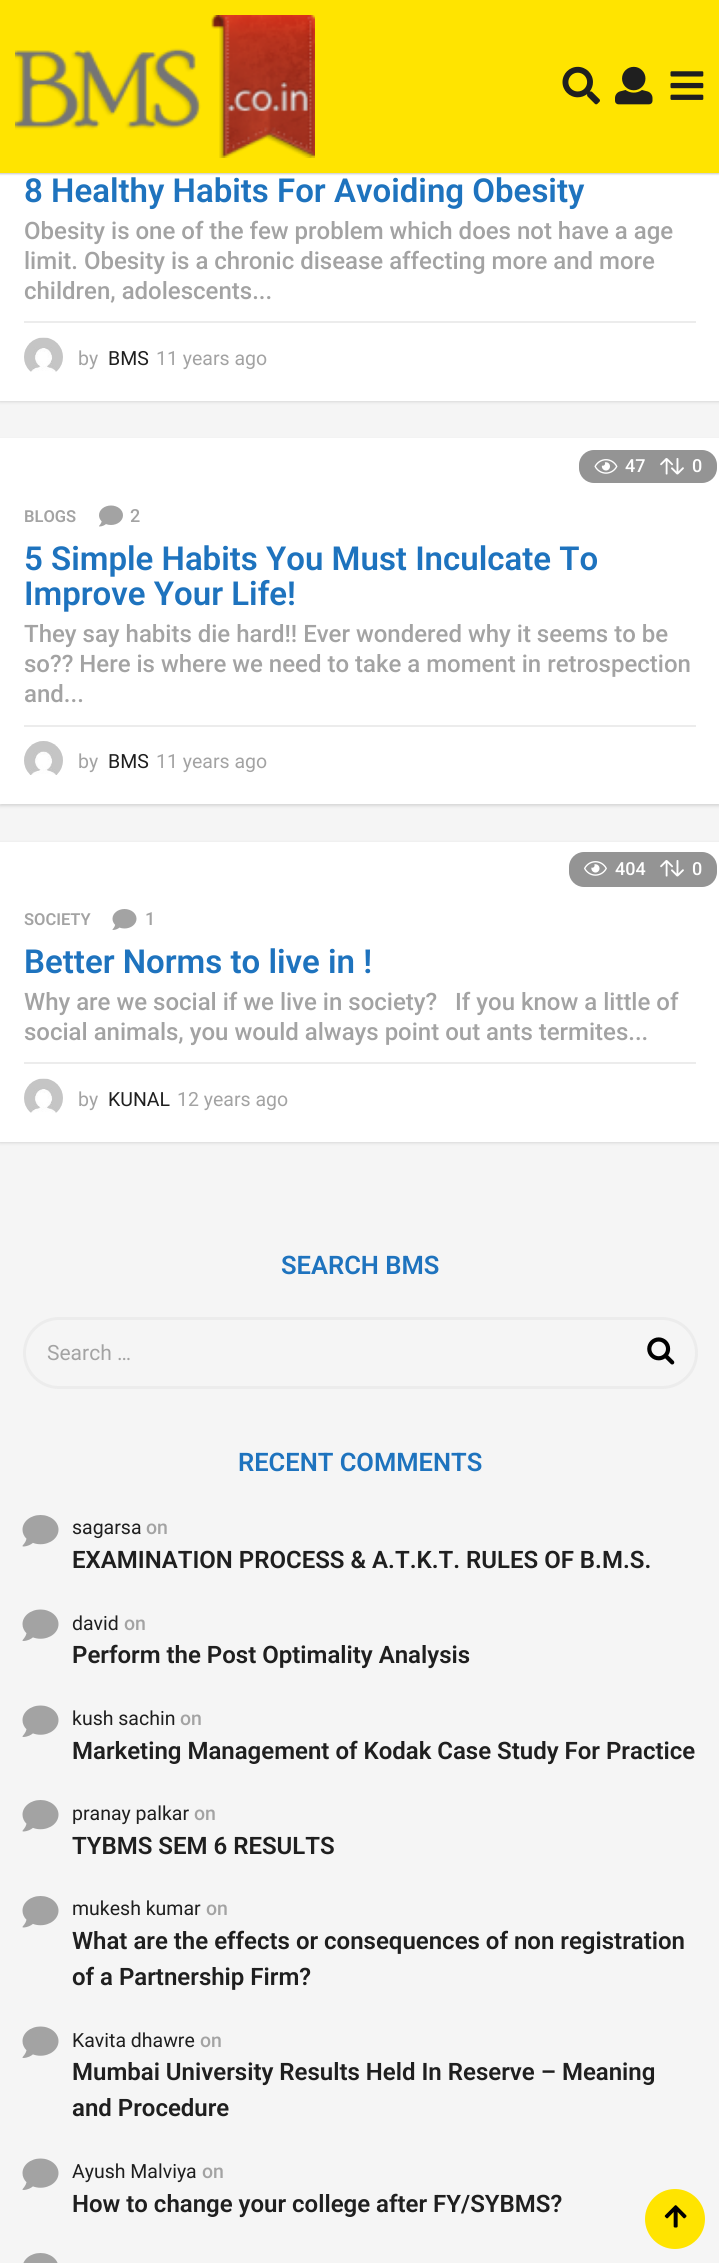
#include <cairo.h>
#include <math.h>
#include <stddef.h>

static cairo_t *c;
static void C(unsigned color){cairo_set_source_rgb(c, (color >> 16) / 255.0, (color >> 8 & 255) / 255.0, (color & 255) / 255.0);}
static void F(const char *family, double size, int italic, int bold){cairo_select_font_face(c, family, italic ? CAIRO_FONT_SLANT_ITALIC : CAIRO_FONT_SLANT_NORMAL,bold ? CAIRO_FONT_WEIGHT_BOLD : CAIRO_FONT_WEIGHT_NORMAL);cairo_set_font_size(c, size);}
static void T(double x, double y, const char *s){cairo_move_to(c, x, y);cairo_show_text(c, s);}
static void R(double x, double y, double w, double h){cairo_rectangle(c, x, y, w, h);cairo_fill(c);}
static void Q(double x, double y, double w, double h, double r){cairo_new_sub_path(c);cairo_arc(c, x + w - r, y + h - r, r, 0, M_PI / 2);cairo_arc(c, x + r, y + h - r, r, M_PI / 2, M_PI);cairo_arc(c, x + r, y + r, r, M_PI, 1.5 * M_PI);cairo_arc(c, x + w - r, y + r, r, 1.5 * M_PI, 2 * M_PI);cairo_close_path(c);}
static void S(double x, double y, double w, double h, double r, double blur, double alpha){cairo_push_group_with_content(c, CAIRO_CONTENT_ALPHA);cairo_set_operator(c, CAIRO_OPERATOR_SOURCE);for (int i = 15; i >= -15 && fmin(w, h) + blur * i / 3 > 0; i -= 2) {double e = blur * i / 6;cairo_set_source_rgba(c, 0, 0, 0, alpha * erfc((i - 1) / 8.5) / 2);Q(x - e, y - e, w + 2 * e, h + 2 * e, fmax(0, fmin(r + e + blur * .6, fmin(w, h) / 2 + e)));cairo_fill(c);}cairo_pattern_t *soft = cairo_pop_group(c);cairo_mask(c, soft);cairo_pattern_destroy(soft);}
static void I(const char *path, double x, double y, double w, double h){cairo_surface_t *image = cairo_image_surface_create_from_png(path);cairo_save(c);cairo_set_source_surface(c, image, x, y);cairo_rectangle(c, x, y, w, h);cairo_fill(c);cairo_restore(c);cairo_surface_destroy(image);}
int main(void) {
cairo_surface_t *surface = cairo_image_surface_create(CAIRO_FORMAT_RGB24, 719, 2263);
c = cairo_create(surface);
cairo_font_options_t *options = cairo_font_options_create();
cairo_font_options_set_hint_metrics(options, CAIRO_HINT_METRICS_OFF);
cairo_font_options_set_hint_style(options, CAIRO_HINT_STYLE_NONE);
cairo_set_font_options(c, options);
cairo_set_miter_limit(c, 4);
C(0xf5f5f5);
cairo_paint(c);
C(0x2a2a2a);
S(0,72,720,330,0,1.5,.15);
C(0xffffff);
R(0,173,719,228);
C(0x2a2a2a);
S(-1,2,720,172,0,1,.27);
C(0xffe400);
R(0,0,719,173);
I("1.png",15,15,300,143);
I("2.png",562,66,38,39);
I("3.png",615,66,38,39);
I("4.png",670,71,34,29);
F("Roboto SemiBold",33,0,0);
C(0x1e73be);
T(24,202,"8 Healthy Habits For Avoiding Obesity");
F("Roboto Medium",24,0,0);
C(0xa3a3a3);
T(24,239,"Obesity is one of the few problem which does not have a age");
T(24,269,"limit. Obesity is a chronic disease affecting more and more");
T(24,299,"children, adolescents...");
C(0xececec);
R(24,321,672,2);
I("5.png",24,337,39,35);
F("Roboto",19.5,0,0);
C(0xa3a3a3);
T(78,365,"by");
C(0x1f1f1f);
T(108,365,"BMS");
C(0xa3a3a3);
T(156,365,"11 years ago");
C(0x2a2a2a);
S(0,440,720,366,0,1.5,.15);
C(0xffffff);
R(0,438,719,366);
C(0x949494);
Q(579,450,138,33,15);
cairo_fill(c);
I("6.png",594,459,24,15);
F("Roboto Medium",18,0,0);
C(0xffffff);
T(625,472,"47");
I("7.png",660,458,24,17);
T(692,472,"0");
F("Roboto SemiBold",16.5,0,0);
C(0xa3a3a3);
T(24,522,"BLOGS");
I("8.png",99,505,24,22);
F("Roboto Medium",18,0,0);
T(130,522,"2");
F("Roboto SemiBold",33,0,0);
C(0x1e73be);
T(24,570,"5 Simple Habits You Must Inculcate To");
T(24,605,"Improve Your Life!");
F("Roboto Medium",24,0,0);
C(0xa3a3a3);
T(24,642,"They say habits die hard!! Ever wondered why it seems to be");
T(24,672,"so?\077 Here is where we need to take a moment in retrospection");
T(24,702,"and...");
C(0xececec);
R(24,725,672,2);
I("9.png",24,741,39,34);
F("Roboto",19.5,0,0);
C(0xa3a3a3);
T(78,768,"by");
C(0x1f1f1f);
T(108,768,"BMS");
C(0xa3a3a3);
T(156,768,"11 years ago");
C(0x2a2a2a);
S(0,843,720,300,0,1.5,.15);
C(0xffffff);
R(0,842,719,300);
C(0x949494);
Q(569,852,148,35,15);
cairo_fill(c);
I("10.png",584,861,23,15);
F("Roboto Medium",18,0,0);
C(0xffffff);
T(615,875,"404");
I("7.png",660,860,24,17);
T(692,875,"0");
F("Roboto SemiBold",16.5,0,0);
C(0xa3a3a3);
T(24,925,"SOCIETY");
I("11.png",112,909,25,21);
F("Roboto Medium",18,0,0);
T(145,925,"1");
F("Roboto SemiBold",33,0,0);
C(0x1e73be);
T(24,973,"Better Norms to live in !");
F("Roboto Medium",24,0,0);
C(0xa3a3a3);
T(24,1010,"Why are we social if we live in society?   If you know a little of");
T(24,1040,"social animals, you would always point out ants termites...");
C(0xececec);
R(24,1062,672,2);
I("5.png",24,1078,39,35);
F("Roboto",19.5,0,0);
C(0xa3a3a3);
T(78,1106,"by");
C(0x1f1f1f);
T(108,1106,"KUNAL");
C(0xa3a3a3);
T(177,1106,"12 years ago");
F("Roboto SemiBold",25.5,0,0);
C(0x1e73be);
T(281,1274,"SEARCH BMS");
Q(24.5,1318.5,672,69,34.5);
C(0xececec);
cairo_set_line_width(c,3);
cairo_stroke(c);
F("Roboto",21,0,0);
C(0xa3a3a3);
T(47,1360,"Search …");
I("12.png",647,1337,28,28);
F("Roboto SemiBold",25.5,0,0);
C(0x1e73be);
T(238,1471,"RECENT COMMENTS");
I("13.png",22,1515,37,32);
F("Roboto",19.5,0,0);
C(0x1f1f1f);
T(72,1534,"sagarsa");
F("Roboto Medium",19.5,0,0);
C(0xa3a3a3);
T(146,1534,"on");
F("Roboto SemiBold",24,0,0);
C(0x1f1f1f);
T(72,1568,"EXAMINATION PROCESS & A.T.K.T. RULES OF B.M.S.");
I("14.png",22,1609,37,32);
F("Roboto",19.5,0,0);
T(72,1630,"david");
F("Roboto Medium",19.5,0,0);
C(0xa3a3a3);
T(124,1630,"on");
F("Roboto SemiBold",24,0,0);
C(0x1f1f1f);
T(72,1663,"Perform the Post Optimality Analysis");
I("14.png",22,1705,37,32);
F("Roboto",19.5,0,0);
T(72,1725,"kush sachin");
F("Roboto Medium",19.5,0,0);
C(0xa3a3a3);
T(180,1725,"on");
F("Roboto SemiBold",24,0,0);
C(0x1f1f1f);
T(72,1759,"Marketing Management of Kodak Case Study For Practice");
I("13.png",22,1800,37,32);
F("Roboto",19.5,0,0);
T(72,1820,"pranay palkar");
F("Roboto Medium",19.5,0,0);
C(0xa3a3a3);
T(194,1820,"on");
F("Roboto SemiBold",24,0,0);
C(0x1f1f1f);
T(72,1854,"TYBMS SEM 6 RESULTS");
I("13.png",22,1896,37,32);
F("Roboto",19.5,0,0);
T(72,1915,"mukesh kumar");
F("Roboto Medium",19.5,0,0);
C(0xa3a3a3);
T(206,1915,"on");
F("Roboto SemiBold",24,0,0);
C(0x1f1f1f);
T(72,1949,"What are the effects or consequences of non registration");
T(72,1985,"of a Partnership Firm?");
I("14.png",22,2026,37,32);
F("Roboto",19.5,0,0);
T(72,2047,"Kavita dhawre");
F("Roboto Medium",19.5,0,0);
C(0xa3a3a3);
T(200,2047,"on");
F("Roboto SemiBold",24,0,0);
C(0x1f1f1f);
T(72,2080,"Mumbai University Results Held In Reserve – Meaning");
T(72,2116,"and Procedure");
I("14.png",22,2158,37,32);
F("Roboto",19.5,0,0);
T(72,2178,"Ayush Malviya");
F("Roboto Medium",19.5,0,0);
C(0xa3a3a3);
T(202,2178,"on");
F("Roboto SemiBold",24,0,0);
C(0x1f1f1f);
T(72,2212,"How to change your college after FY/SYBMS?");
I("15.png",23,2253,35,10);
C(0xffe400);
cairo_arc(c,675,2219,30,0,2 * M_PI);
cairo_fill(c);
I("16.png",664,2205,23,23);
cairo_surface_write_to_png(surface, "o.png");
cairo_font_options_destroy(options);
cairo_destroy(c);
cairo_surface_destroy(surface);
return 0;
}
